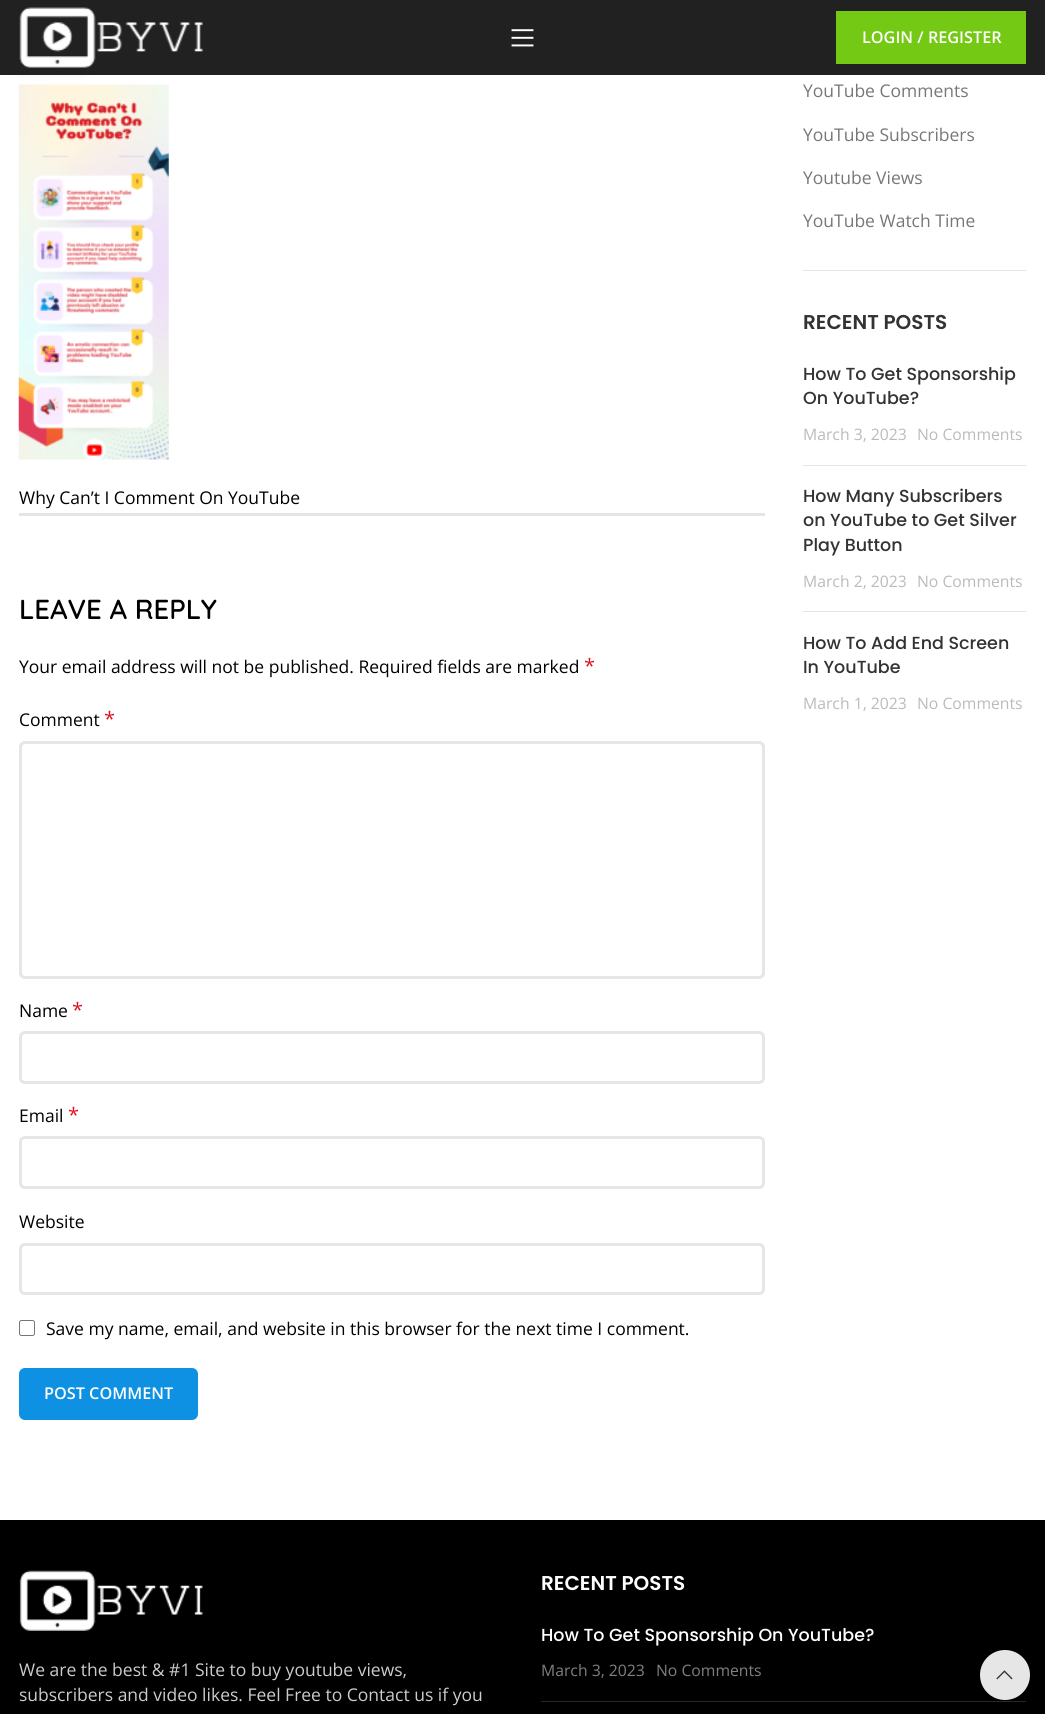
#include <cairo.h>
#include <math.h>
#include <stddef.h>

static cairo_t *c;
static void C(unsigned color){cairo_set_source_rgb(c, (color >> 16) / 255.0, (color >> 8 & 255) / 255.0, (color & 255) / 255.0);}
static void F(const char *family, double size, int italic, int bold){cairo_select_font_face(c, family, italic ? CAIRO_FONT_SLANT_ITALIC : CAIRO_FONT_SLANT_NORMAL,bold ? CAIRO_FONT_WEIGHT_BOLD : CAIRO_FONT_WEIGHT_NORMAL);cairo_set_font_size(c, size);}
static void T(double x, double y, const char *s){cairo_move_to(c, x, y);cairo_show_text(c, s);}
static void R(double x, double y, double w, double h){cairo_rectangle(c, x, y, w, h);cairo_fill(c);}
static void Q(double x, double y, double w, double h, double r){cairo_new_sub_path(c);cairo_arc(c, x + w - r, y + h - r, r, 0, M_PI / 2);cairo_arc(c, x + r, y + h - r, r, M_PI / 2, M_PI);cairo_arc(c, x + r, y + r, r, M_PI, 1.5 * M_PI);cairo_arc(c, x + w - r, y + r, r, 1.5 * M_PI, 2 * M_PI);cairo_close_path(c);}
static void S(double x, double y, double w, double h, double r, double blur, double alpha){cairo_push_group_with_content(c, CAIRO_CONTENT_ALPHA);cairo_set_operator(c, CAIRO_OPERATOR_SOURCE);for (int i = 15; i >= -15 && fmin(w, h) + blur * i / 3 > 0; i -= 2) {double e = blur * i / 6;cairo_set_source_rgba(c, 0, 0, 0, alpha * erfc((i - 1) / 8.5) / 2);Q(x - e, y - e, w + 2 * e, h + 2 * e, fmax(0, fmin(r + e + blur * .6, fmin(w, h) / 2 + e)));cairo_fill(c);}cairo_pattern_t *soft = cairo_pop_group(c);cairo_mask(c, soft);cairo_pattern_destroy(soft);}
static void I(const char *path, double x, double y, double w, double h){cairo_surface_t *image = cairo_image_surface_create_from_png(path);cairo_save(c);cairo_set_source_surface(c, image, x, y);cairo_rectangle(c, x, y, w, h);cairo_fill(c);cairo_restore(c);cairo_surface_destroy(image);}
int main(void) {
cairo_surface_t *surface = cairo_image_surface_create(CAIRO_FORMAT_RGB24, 1045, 1714);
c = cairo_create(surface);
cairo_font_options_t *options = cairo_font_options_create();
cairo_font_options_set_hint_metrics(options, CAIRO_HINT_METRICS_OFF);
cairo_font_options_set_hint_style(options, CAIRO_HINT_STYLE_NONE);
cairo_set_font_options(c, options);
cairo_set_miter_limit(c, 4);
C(0xffffff);
cairo_paint(c);
I("3.png",18,84,151,376);
C(0x000000);
S(19,1,66,70,0,5.5,.1);
C(0x212121);
R(0,0,1045,75);
I("1.png",19,7,184,61);
I("2.png",511,29,23,18);
C(0x74c914);
R(836,11,190,53);
F("Open Sans SemiBold",16.25,0,0);
C(0xffffff);
T(862,43,"LOGIN / REGISTER");
C(0xe4e4e4);
R(803,270,223,1);
F("Open Sans",17.5,0,0);
C(0x777777);
T(803,97,"YouTube Comments");
T(803,141,"YouTube Subscribers");
T(803,184,"Youtube Views");
T(803,227,"YouTube Watch Time");
F("Poppins SemiBold",20,0,0);
C(0x333333);
T(803,329,"RECENT POSTS");
C(0xe4e4e4);
R(803,465,223,1);
F("Poppins Medium",17.5,0,0);
C(0x333333);
T(803,380,"How To Get Sponsorship");
T(803,404,"On YouTube?");
F("Open Sans",15.75,0,0);
C(0xbbbbbb);
T(803,440,"March 3, 2023");
T(917,440,"No Comments");
C(0xe4e4e4);
R(803,611,223,1);
F("Poppins Medium",17.5,0,0);
C(0x333333);
T(803,502,"How Many Subscribers");
T(803,526,"on YouTube to Get Silver");
T(803,551,"Play Button");
F("Open Sans",15.75,0,0);
C(0xbbbbbb);
T(803,587,"March 2, 2023");
T(917,587,"No Comments");
F("Poppins Medium",17.5,0,0);
C(0x333333);
T(803,649,"How To Add End Screen");
T(803,673,"In YouTube");
F("Open Sans",15.75,0,0);
C(0xbbbbbb);
T(803,709,"March 1, 2023");
T(917,709,"No Comments");
F("Open Sans",17.5,0,0);
C(0x000000);
T(19,504,"Why Can’t I Comment On YouTube");
C(0xe4e4e4);
R(19,513,746,3);
F("Quicksand SemiBold",27.5,0,0);
C(0x000000);
T(19,619,"LEAVE A REPLY");
F("Open Sans",17.5,0,0);
T(19,673,"Your email address will not be published. Required fields are marked");
F("Open Sans",20,0,0);
C(0xe01020);
T(584,673,"*");
F("Open Sans",17.5,0,0);
C(0x000000);
T(19,726,"Comment");
F("Open Sans",20,0,0);
C(0xe01020);
T(104,726,"*");
Q(20.5,742.5,743,235,4.5);
C(0xe6e6e6);
cairo_set_line_width(c,3);
cairo_stroke(c);
F("Open Sans",17.5,0,0);
C(0x000000);
T(19,1017,"Name");
F("Open Sans",20,0,0);
C(0xe01020);
T(72,1017,"*");
Q(20.5,1032.5,743,50,4.5);
C(0xe6e6e6);
cairo_stroke(c);
F("Open Sans",17.5,0,0);
C(0x000000);
T(19,1122,"Email");
F("Open Sans",20,0,0);
C(0xe01020);
T(68,1122,"*");
Q(20.5,1137.5,743,50,4.5);
C(0xe6e6e6);
cairo_stroke(c);
F("Open Sans",17.5,0,0);
C(0x000000);
T(19,1228,"Website");
Q(20.5,1244.5,743,49,4.5);
C(0xe6e6e6);
cairo_stroke(c);
Q(19.5,1320.5,15,15,2);
C(0x767676);
cairo_set_line_width(c,1);
cairo_stroke(c);
C(0x000000);
T(46,1335,"Save my name, email, and website in this browser for the next time I comment.");
C(0x0f91e3);
Q(19,1368,179,52,6);
cairo_fill(c);
F("Open Sans SemiBold",16.25,0,0);
C(0xffffff);
T(44,1399,"POST COMMENT");
C(0x000000);
R(0,1520,1045,194);
F("Poppins SemiBold",20,0,0);
C(0xffffff);
T(541,1590,"RECENT POSTS");
C(0x262626);
R(541,1701,485,1);
F("Poppins Medium",17.5,0,0);
C(0xffffff);
T(541,1641,"How To Get Sponsorship On YouTube?");
F("Open Sans",15.75,0,0);
C(0x808080);
T(541,1676,"March 3, 2023");
T(656,1676,"No Comments");
I("4.png",19,1570,184,61);
F("Open Sans",17.5,0,0);
C(0xcccccc);
T(19,1676,"We are the best & #1 Site to buy youtube views,");
T(19,1701,"subscribers and video likes. Feel Free to Contact us if you");
C(0xe6e6e6);
cairo_new_path(c);
cairo_arc(c,1005,1675,25,0,2 * M_PI);
cairo_fill(c);
I("5.png",996,1670,17,10);
cairo_surface_write_to_png(surface, "o.png");
cairo_font_options_destroy(options);
cairo_destroy(c);
cairo_surface_destroy(surface);
return 0;
}
